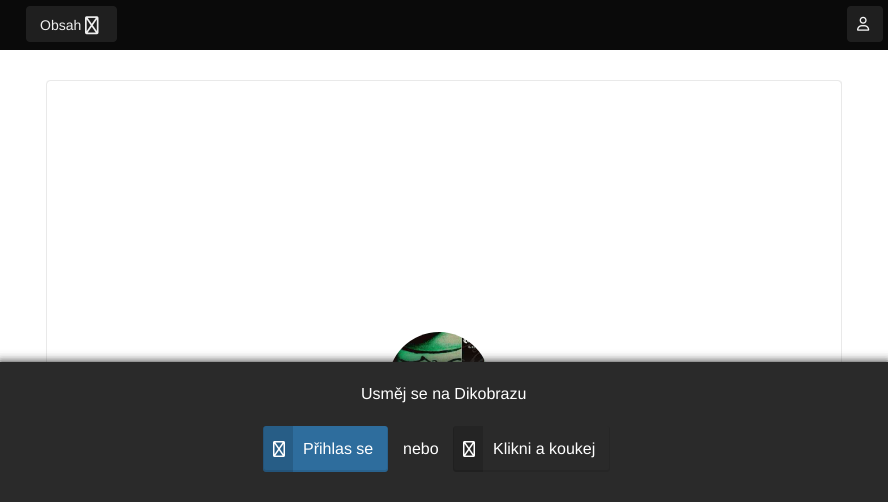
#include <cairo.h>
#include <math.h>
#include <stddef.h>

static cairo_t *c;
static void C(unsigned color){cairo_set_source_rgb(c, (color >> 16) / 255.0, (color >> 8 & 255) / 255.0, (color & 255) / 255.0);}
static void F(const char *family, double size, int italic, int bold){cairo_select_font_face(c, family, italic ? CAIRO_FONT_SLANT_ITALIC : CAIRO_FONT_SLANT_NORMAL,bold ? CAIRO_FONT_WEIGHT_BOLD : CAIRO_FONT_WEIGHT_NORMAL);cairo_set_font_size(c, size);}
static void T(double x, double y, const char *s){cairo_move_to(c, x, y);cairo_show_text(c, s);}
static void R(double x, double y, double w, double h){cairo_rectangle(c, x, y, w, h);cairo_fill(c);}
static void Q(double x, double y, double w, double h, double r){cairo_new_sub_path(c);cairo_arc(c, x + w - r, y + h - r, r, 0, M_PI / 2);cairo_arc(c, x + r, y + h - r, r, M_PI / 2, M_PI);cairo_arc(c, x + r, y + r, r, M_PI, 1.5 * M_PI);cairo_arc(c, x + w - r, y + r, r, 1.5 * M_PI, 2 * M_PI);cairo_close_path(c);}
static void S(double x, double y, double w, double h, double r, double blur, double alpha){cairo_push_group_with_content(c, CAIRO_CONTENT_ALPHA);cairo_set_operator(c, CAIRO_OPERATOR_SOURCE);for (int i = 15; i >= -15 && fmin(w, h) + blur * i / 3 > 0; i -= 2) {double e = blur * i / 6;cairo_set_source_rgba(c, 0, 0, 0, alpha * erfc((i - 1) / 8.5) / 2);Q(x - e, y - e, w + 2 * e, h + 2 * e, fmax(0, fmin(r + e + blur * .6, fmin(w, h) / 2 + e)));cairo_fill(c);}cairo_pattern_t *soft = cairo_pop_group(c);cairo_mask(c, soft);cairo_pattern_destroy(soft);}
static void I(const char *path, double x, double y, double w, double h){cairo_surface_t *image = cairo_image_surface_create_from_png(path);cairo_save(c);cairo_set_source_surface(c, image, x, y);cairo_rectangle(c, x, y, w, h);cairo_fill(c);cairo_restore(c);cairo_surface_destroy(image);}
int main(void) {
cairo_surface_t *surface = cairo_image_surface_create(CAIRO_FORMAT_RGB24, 888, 502);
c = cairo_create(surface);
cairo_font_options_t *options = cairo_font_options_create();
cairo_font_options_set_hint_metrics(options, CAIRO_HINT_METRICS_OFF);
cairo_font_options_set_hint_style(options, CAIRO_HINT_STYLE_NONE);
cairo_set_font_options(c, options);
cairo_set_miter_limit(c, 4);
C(0xffffff);
cairo_paint(c);
C(0x0a0a0a);
R(0,0,888,50);
C(0x1f1f1f);
Q(26,6,91,36,4);
cairo_fill(c);
F("Liberation Sans",14,0,0);
C(0xf0f0f0);
T(40,30,"Obsah");
I("1.png",85,16,14,19);
C(0x1f1f1f);
Q(847,6,36,36,4);
cairo_fill(c);
I("2.png",857,16,13,15);
C(0xe9e9e9);
cairo_new_path(c);
cairo_move_to(c,50,80);
cairo_line_to(c,47,81);
cairo_line_to(c,48,82);
cairo_line_to(c,50,81);
cairo_line_to(c,838,81);
cairo_line_to(c,840,82);
cairo_line_to(c,841,81);
cairo_line_to(c,838,80);
cairo_close_path(c);
cairo_fill(c);
cairo_new_path(c);
cairo_move_to(c,842,497);
cairo_line_to(c,842,84);
cairo_curve_to(c,842,83,842,82,841,81);
cairo_line_to(c,840,82);
cairo_line_to(c,841,84);
cairo_line_to(c,841,497);
cairo_line_to(c,841,498);
cairo_line_to(c,841,499);
cairo_close_path(c);
cairo_fill(c);
cairo_new_path(c);
cairo_move_to(c,46,84);
cairo_line_to(c,46,497);
cairo_line_to(c,47,499);
cairo_line_to(c,47,498);
cairo_line_to(c,47,497);
cairo_line_to(c,47,84);
cairo_line_to(c,48,82);
cairo_line_to(c,47,81);
cairo_close_path(c);
cairo_fill(c);
I("3.png",392,332,94,30);
C(0x1f1f1f);
S(0,362,888,140,0,5,1);
C(0x2a2a2a);
R(0,362,888,140);
F("Liberation Sans",16,0,0);
C(0xffffff);
T(361,399,"Usměj se na Dikobrazu");
C(0x2e6d9d);
Q(263,426,125,46,3);
cairo_fill(c);
cairo_set_source_rgba(c,0,0,0,0.1);
cairo_new_path(c);
cairo_move_to(c,266,426);
cairo_curve_to(c,264,426,263,427,263,429);
cairo_line_to(c,263,469);
cairo_curve_to(c,263,471,264,472,266,472);
cairo_line_to(c,385,472);
cairo_curve_to(c,387,472,388,471,388,469);
cairo_line_to(c,388,429);
cairo_curve_to(c,388,427,387,426,385,426);
cairo_curve_to(c,386,426,387,427,387,428);
cairo_line_to(c,387,468);
cairo_curve_to(c,387,469,386,470,385,470);
cairo_line_to(c,266,470);
cairo_curve_to(c,265,470,264,469,264,468);
cairo_line_to(c,264,428);
cairo_curve_to(c,264,427,265,426,266,426);
cairo_close_path(c);
cairo_fill(c);
cairo_set_source_rgba(c,0,0,0,0.15);
cairo_new_path(c);
cairo_move_to(c,266,426);
cairo_line_to(c,293,426);
cairo_line_to(c,293,472);
cairo_line_to(c,266,472);
cairo_curve_to(c,264.5,472,263,470.5,263,469);
cairo_line_to(c,263,429);
cairo_curve_to(c,263,427.5,264.5,426,266,426);
cairo_close_path(c);
cairo_fill(c);
I("4.png",273,441,12,16);
C(0xffffff);
T(303,454,"Přihlas se");
T(403,454,"nebo");
C(0x262626);
cairo_new_path(c);
cairo_move_to(c,456,426);
cairo_curve_to(c,454,426,453,427,453,429);
cairo_line_to(c,453,469);
cairo_curve_to(c,453,471,454,472,456,472);
cairo_line_to(c,607,472);
cairo_curve_to(c,609,472,610,471,610,469);
cairo_line_to(c,610,429);
cairo_curve_to(c,610,427,609,426,607,426);
cairo_curve_to(c,608,426,609,427,609,428);
cairo_line_to(c,609,468);
cairo_curve_to(c,609,469,608,470,607,470);
cairo_line_to(c,456,470);
cairo_curve_to(c,455,470,454,469,454,468);
cairo_line_to(c,454,428);
cairo_curve_to(c,454,427,455,426,456,426);
cairo_close_path(c);
cairo_fill(c);
cairo_set_source_rgba(c,0,0,0,0.15);
cairo_new_path(c);
cairo_move_to(c,456,426);
cairo_line_to(c,483,426);
cairo_line_to(c,483,472);
cairo_line_to(c,456,472);
cairo_curve_to(c,454.5,472,453,470.5,453,469);
cairo_line_to(c,453,429);
cairo_curve_to(c,453,427.5,454.5,426,456,426);
cairo_close_path(c);
cairo_fill(c);
I("5.png",463,441,12,16);
C(0xffffff);
T(493,454,"Klikni a koukej");
cairo_surface_write_to_png(surface, "o.png");
cairo_font_options_destroy(options);
cairo_destroy(c);
cairo_surface_destroy(surface);
return 0;
}
